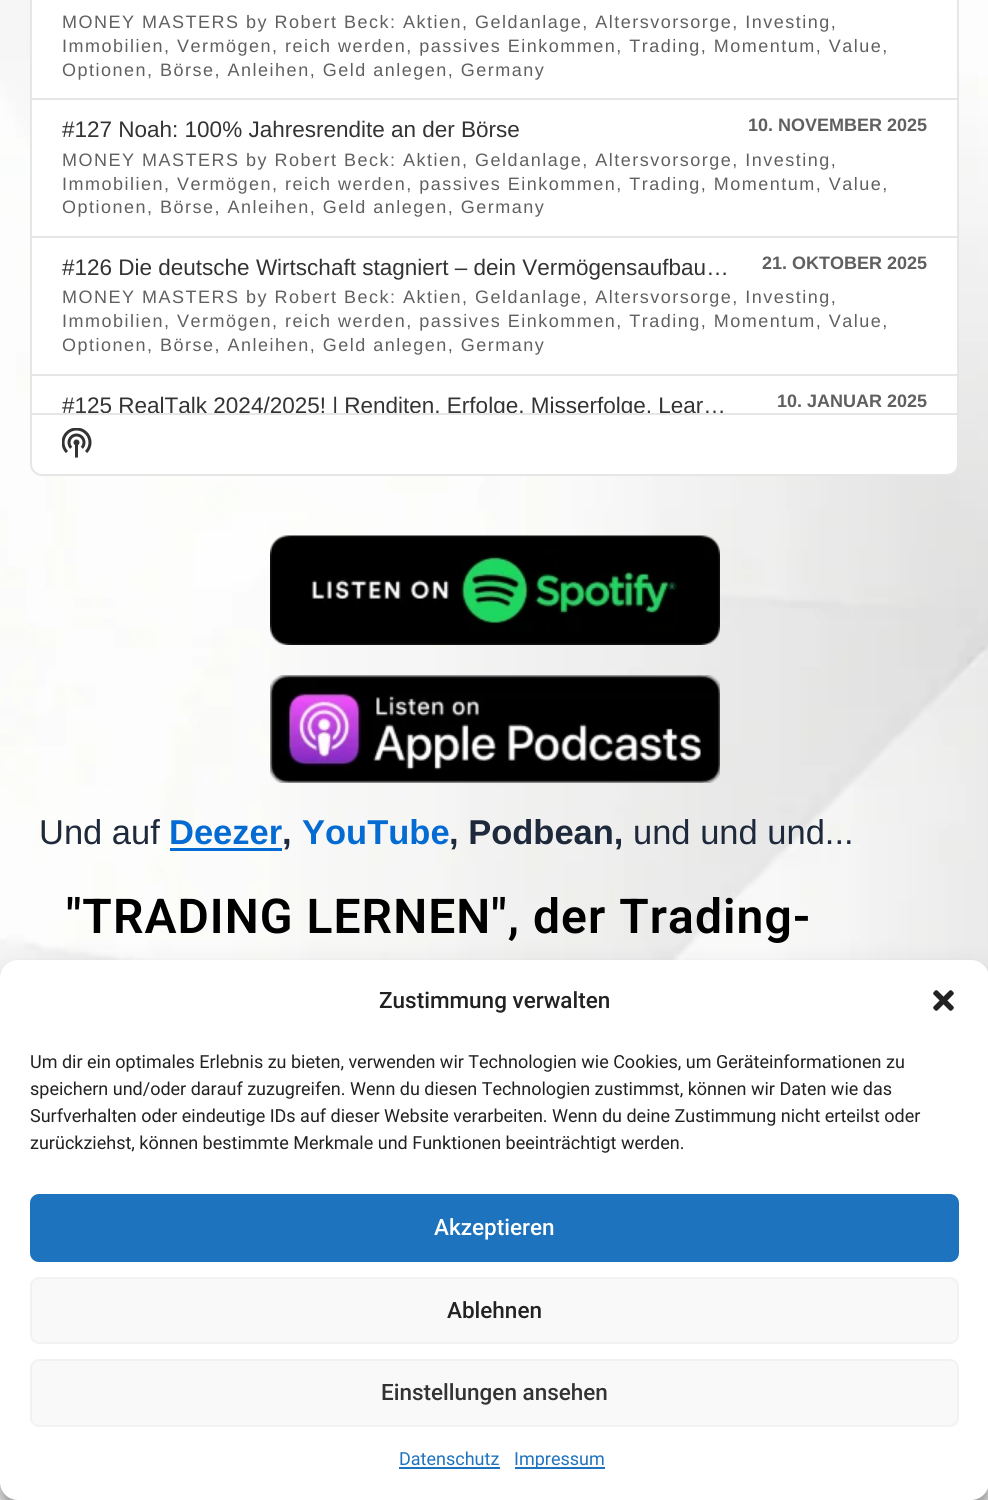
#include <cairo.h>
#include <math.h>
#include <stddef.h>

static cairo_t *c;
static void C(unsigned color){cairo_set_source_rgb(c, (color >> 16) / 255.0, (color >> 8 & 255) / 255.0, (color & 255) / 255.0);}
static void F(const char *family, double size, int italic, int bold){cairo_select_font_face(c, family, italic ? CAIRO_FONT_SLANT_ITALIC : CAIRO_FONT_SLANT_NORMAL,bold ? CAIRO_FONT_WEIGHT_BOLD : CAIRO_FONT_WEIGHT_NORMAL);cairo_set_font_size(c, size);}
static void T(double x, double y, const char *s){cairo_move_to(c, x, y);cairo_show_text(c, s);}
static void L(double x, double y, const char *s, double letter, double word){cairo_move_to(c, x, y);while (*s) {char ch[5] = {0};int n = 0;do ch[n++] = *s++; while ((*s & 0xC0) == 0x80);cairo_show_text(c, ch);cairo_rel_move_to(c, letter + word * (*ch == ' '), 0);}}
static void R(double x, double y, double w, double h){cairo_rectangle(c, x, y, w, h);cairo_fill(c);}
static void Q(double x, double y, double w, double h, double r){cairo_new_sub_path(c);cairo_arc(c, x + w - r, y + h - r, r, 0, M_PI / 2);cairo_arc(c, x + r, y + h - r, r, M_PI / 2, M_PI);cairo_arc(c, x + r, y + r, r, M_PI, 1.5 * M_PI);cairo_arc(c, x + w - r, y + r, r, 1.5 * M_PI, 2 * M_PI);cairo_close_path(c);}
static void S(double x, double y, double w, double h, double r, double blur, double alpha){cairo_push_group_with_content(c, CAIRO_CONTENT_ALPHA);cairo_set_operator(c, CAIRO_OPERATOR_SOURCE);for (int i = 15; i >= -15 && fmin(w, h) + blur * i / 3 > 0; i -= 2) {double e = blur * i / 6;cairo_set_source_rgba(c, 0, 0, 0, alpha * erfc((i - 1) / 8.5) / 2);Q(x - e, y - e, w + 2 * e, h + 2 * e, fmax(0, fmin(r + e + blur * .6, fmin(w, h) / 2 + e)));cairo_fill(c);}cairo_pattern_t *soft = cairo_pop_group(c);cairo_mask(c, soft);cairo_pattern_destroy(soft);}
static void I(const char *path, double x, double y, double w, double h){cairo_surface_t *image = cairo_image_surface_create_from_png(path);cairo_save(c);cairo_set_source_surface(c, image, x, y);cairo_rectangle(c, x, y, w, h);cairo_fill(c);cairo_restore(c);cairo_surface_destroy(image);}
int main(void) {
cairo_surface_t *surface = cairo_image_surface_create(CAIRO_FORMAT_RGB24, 988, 1500);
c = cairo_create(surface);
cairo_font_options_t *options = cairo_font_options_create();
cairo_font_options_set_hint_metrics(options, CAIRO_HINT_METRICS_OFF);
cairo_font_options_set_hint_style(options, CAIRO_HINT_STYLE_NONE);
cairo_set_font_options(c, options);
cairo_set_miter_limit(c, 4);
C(0xffffff);
cairo_paint(c);
I("1.png",0,0,988,1500);
C(0xffffff);
Q(30,-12,929,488,12);
cairo_fill(c);
Q(31,-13,927,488,11);
cairo_set_source_rgba(c,0,0,0,0.1);
cairo_stroke(c);
C(0xe6e6e6);
R(32,98,925,2);
F("Liberation Sans",18,0,0);
C(0x606060);
L(62,28,"MONEY MASTERS by Robert Beck: Aktien, Geldanlage, Altersvorsorge, Investing,",1.5,0);
L(62,52,"Immobilien, Vermögen, reich werden, passives Einkommen, Trading, Momentum, Value,",1.5,0);
L(62,76,"Optionen, Börse, Anleihen, Geld anlegen, Germany",1.5,0);
C(0xe6e6e6);
R(32,236,925,2);
F("Liberation Sans",22.5,0,0);
C(0x333333);
T(62,137,"#127 Noah: 100% Jahresrendite an der Börse");
F("Liberation Sans",18,0,1);
C(0x606060);
T(748,131,"10. NOVEMBER 2025");
F("Liberation Sans",18,0,0);
L(62,166,"MONEY MASTERS by Robert Beck: Aktien, Geldanlage, Altersvorsorge, Investing,",1.5,0);
L(62,190,"Immobilien, Vermögen, reich werden, passives Einkommen, Trading, Momentum, Value,",1.5,0);
L(62,213,"Optionen, Börse, Anleihen, Geld anlegen, Germany",1.5,0);
C(0xe6e6e6);
R(32,374,925,2);
F("Liberation Sans",22.5,0,0);
C(0x333333);
T(62,275,"#126 Die deutsche Wirtschaft stagniert – dein Vermögensaufbau…");
F("Liberation Sans",18,0,1);
C(0x606060);
T(762,269,"21. OKTOBER 2025");
F("Liberation Sans",18,0,0);
L(62,303,"MONEY MASTERS by Robert Beck: Aktien, Geldanlage, Altersvorsorge, Investing,",1.5,0);
L(62,327,"Immobilien, Vermögen, reich werden, passives Einkommen, Trading, Momentum, Value,",1.5,0);
L(62,351,"Optionen, Börse, Anleihen, Geld anlegen, Germany",1.5,0);
cairo_save(c);
cairo_rectangle(c,62,390,672,23);
cairo_clip(c);
F("Liberation Sans",22.5,0,0);
C(0x333333);
T(62,413,"#125 RealTalk 2024/2025! | Renditen, Erfolge, Misserfolge, Lear…");
cairo_restore(c);
F("Liberation Sans",18,0,1);
T(777,407,"10. JANUAR 2025");
C(0xe6e6e6);
R(32,413,925,2);
I("2.png",62,428,30,30);
I("3.png",270,535,450,110);
I("4.png",270,675,450,108);
F("Liberation Sans",34.5,0,0);
C(0x1e293b);
T(39,844,"Und auf");
F("Liberation Sans",34.5,0,1);
C(0x046bd2);
T(169,844,"Deezer");
C(0x1e293b);
T(282,844,",");
C(0x046bd2);
R(170,848,112,3);
T(302,844,"YouTube");
C(0x1e293b);
T(449,844,", Podbean,");
F("Liberation Sans",34.5,0,0);
T(633,844,"und und und...");
F("Roboto SemiBold",48,0,0);
C(0x000000);
L(66,933,"\"TRADING LERNEN\", der Trading-",1.05,0);
C(0x000000);
S(0,969,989,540,18,4.5,.23);
S(0,975,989,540,18,15,.19);
C(0xffffff);
Q(0,960,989,540,18);
cairo_fill(c);
F("Roboto Medium",22.5,0,0);
C(0x222222);
T(379,1008,"Zustimmung verwalten");
I("5.png",933,990,21,21);
F("Roboto",18,0,0);
T(30,1068,"Um dir ein optimales Erlebnis zu bieten, verwenden wir Technologien wie Cookies, um Geräteinformationen zu");
T(30,1095,"speichern und/oder darauf zuzugreifen. Wenn du diesen Technologien zustimmst, können wir Daten wie das");
T(30,1122,"Surfverhalten oder eindeutige IDs auf dieser Website verarbeiten. Wenn du deine Zustimmung nicht erteilst oder");
T(30,1149,"zurückziehst, können bestimmte Merkmale und Funktionen beeinträchtigt werden.");
C(0x1e73be);
Q(31,1195,927,66,8);
cairo_fill_preserve(c);
cairo_stroke(c);
F("Roboto Medium",22.5,0,0);
C(0xffffff);
T(434,1235,"Akzeptieren");
C(0xf9f9f9);
Q(31,1278,927,65,8);
cairo_fill_preserve(c);
C(0xf2f2f2);
cairo_stroke(c);
C(0x222222);
T(447,1318,"Ablehnen");
C(0xf9f9f9);
Q(31,1360,927,66,8);
cairo_fill_preserve(c);
C(0xf2f2f2);
cairo_stroke(c);
C(0x333333);
T(381,1400,"Einstellungen ansehen");
F("Roboto",18,0,0);
C(0x1e73be);
T(399,1465,"Datenschutz");
R(399,1467,101,2);
R(515,1467,90,2);
T(514,1465,"Impressum");
cairo_surface_write_to_png(surface, "o.png");
cairo_font_options_destroy(options);
cairo_destroy(c);
cairo_surface_destroy(surface);
return 0;
}
